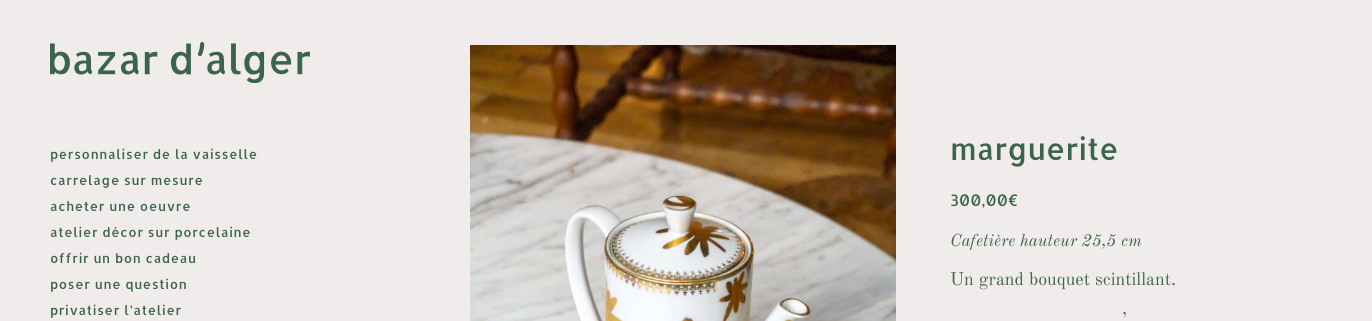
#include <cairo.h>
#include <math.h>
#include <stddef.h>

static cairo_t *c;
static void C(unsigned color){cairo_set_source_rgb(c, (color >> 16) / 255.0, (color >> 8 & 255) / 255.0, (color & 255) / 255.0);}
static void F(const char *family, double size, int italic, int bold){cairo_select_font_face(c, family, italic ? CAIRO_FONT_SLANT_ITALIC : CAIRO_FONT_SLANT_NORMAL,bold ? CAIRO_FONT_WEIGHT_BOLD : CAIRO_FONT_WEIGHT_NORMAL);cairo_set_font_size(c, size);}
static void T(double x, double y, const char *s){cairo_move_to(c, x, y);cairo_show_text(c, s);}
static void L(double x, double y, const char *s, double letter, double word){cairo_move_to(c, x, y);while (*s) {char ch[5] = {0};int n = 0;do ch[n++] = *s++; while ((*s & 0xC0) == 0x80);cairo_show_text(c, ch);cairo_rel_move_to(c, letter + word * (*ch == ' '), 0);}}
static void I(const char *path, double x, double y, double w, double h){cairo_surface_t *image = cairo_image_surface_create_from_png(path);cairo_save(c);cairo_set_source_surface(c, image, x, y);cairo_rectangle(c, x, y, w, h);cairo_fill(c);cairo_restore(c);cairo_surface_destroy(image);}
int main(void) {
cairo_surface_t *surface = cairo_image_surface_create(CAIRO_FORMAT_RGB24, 1372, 321);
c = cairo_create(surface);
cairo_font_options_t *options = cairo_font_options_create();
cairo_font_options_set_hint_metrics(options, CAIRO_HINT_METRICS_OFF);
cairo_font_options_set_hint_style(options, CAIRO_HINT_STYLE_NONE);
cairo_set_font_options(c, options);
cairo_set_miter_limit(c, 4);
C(0xf0ecec);
cairo_paint(c);
I("1.png",50,42,260,41);
F("Allerta",13,0,0);
C(0x3c644b);
L(50,159,"personnaliser de la vaisselle",.65,0);
L(50,185,"carrelage sur mesure",.65,0);
L(50,211,"acheter une oeuvre",.65,0);
L(50,237,"atelier décor sur porcelaine",.65,0);
L(50,263,"offrir un bon cadeau",.65,0);
L(50,289,"poser une question",.65,0);
L(50,315,"privatiser l’atelier",.65,0);
I("2.png",470,45,426,276);
F("Allerta",30,0,0);
T(950,160,"marguerite");
F("Allerta",16,0,0);
T(950,206,"300,00€");
F("Old Standard TT",17,1,0);
T(950,246,"Cafetière hauteur 25,5 cm");
F("Old Standard TT",18,0,0);
T(950,285,"Un grand bouquet scintillant.");
T(1122,325,"’");
cairo_surface_write_to_png(surface, "o.png");
cairo_font_options_destroy(options);
cairo_destroy(c);
cairo_surface_destroy(surface);
return 0;
}
